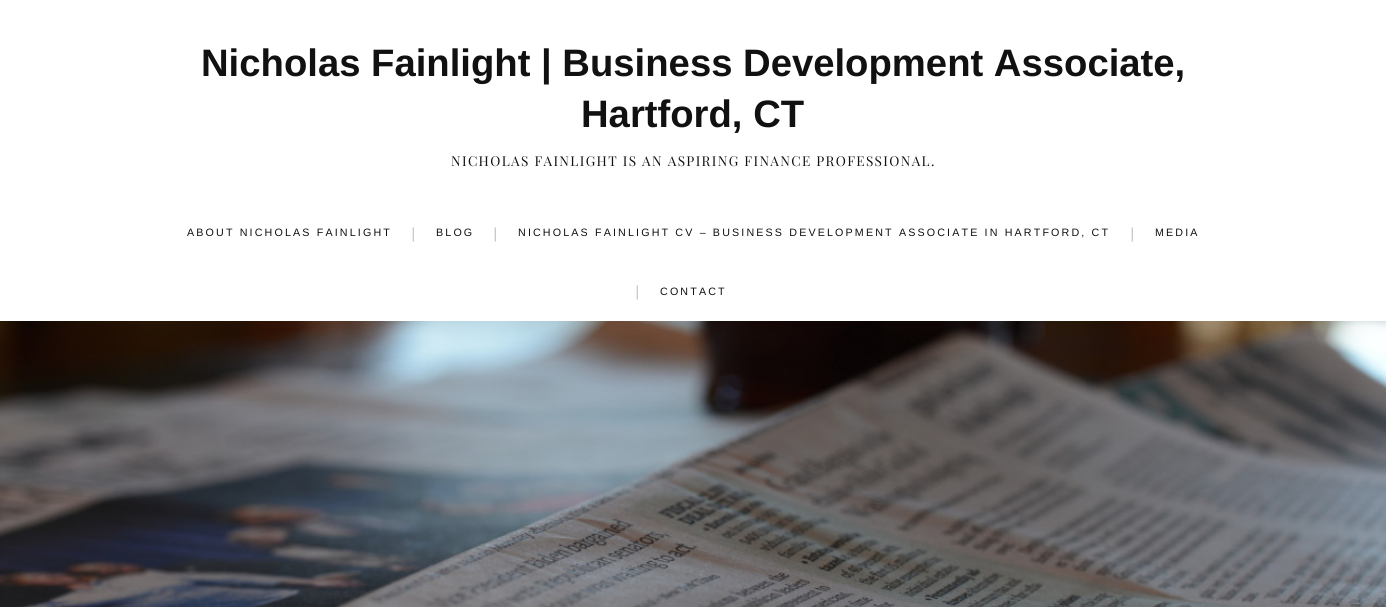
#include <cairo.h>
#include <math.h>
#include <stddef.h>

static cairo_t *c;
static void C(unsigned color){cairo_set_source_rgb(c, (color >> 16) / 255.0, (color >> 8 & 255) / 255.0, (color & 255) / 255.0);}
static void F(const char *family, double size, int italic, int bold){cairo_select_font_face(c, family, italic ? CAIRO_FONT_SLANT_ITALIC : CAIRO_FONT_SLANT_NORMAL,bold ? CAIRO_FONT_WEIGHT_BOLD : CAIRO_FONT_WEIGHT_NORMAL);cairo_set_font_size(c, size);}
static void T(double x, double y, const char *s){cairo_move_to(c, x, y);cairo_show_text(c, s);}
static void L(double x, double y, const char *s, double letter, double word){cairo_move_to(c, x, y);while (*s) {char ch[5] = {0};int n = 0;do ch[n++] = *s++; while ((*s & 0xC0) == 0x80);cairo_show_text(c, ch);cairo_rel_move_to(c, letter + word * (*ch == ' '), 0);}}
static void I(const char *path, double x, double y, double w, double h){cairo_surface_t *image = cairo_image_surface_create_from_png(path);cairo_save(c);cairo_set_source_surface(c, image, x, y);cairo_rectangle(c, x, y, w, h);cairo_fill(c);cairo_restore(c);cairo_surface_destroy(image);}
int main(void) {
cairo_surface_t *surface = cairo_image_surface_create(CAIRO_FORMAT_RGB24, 1386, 607);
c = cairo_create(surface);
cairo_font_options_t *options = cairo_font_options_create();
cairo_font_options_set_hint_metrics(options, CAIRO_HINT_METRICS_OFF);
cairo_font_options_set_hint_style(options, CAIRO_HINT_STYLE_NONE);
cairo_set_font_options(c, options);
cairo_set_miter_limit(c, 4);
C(0xffffff);
cairo_paint(c);
F("Liberation Sans",38.25,0,1);
C(0x111111);
T(201,76,"Nicholas Fainlight | Business Development Associate,");
T(581,127,"Hartford, CT");
F("Playfair Display",13.6,0,0);
L(451,166,"NICHOLAS FAINLIGHT IS AN ASPIRING FINANCE PROFESSIONAL.",1.35,0);
F("Liberation Sans",10.7,0,0);
L(187,236,"ABOUT NICHOLAS FAINLIGHT",2.15,0);
F("Lato",15,0,0);
C(0xbbbbbb);
T(411,239,"|");
F("Liberation Sans",10.7,0,0);
C(0x111111);
L(436,236,"BLOG",2.15,0);
F("Lato",15,0,0);
C(0xbbbbbb);
T(493,239,"|");
F("Liberation Sans",10.7,0,0);
C(0x111111);
L(518,236,"NICHOLAS FAINLIGHT CV – BUSINESS DEVELOPMENT ASSOCIATE IN HARTFORD, CT",2.15,0);
F("Lato",15,0,0);
C(0xbbbbbb);
T(1130,239,"|");
F("Liberation Sans",10.7,0,0);
C(0x111111);
L(1155,236,"MEDIA",2.15,0);
F("Lato",15,0,0);
C(0xbbbbbb);
T(635,297,"|");
F("Liberation Sans",10.7,0,0);
C(0x111111);
L(660,295,"CONTACT",2.15,0);
I("1.png",0,321,1386,286);
cairo_surface_write_to_png(surface, "o.png");
cairo_font_options_destroy(options);
cairo_destroy(c);
cairo_surface_destroy(surface);
return 0;
}
